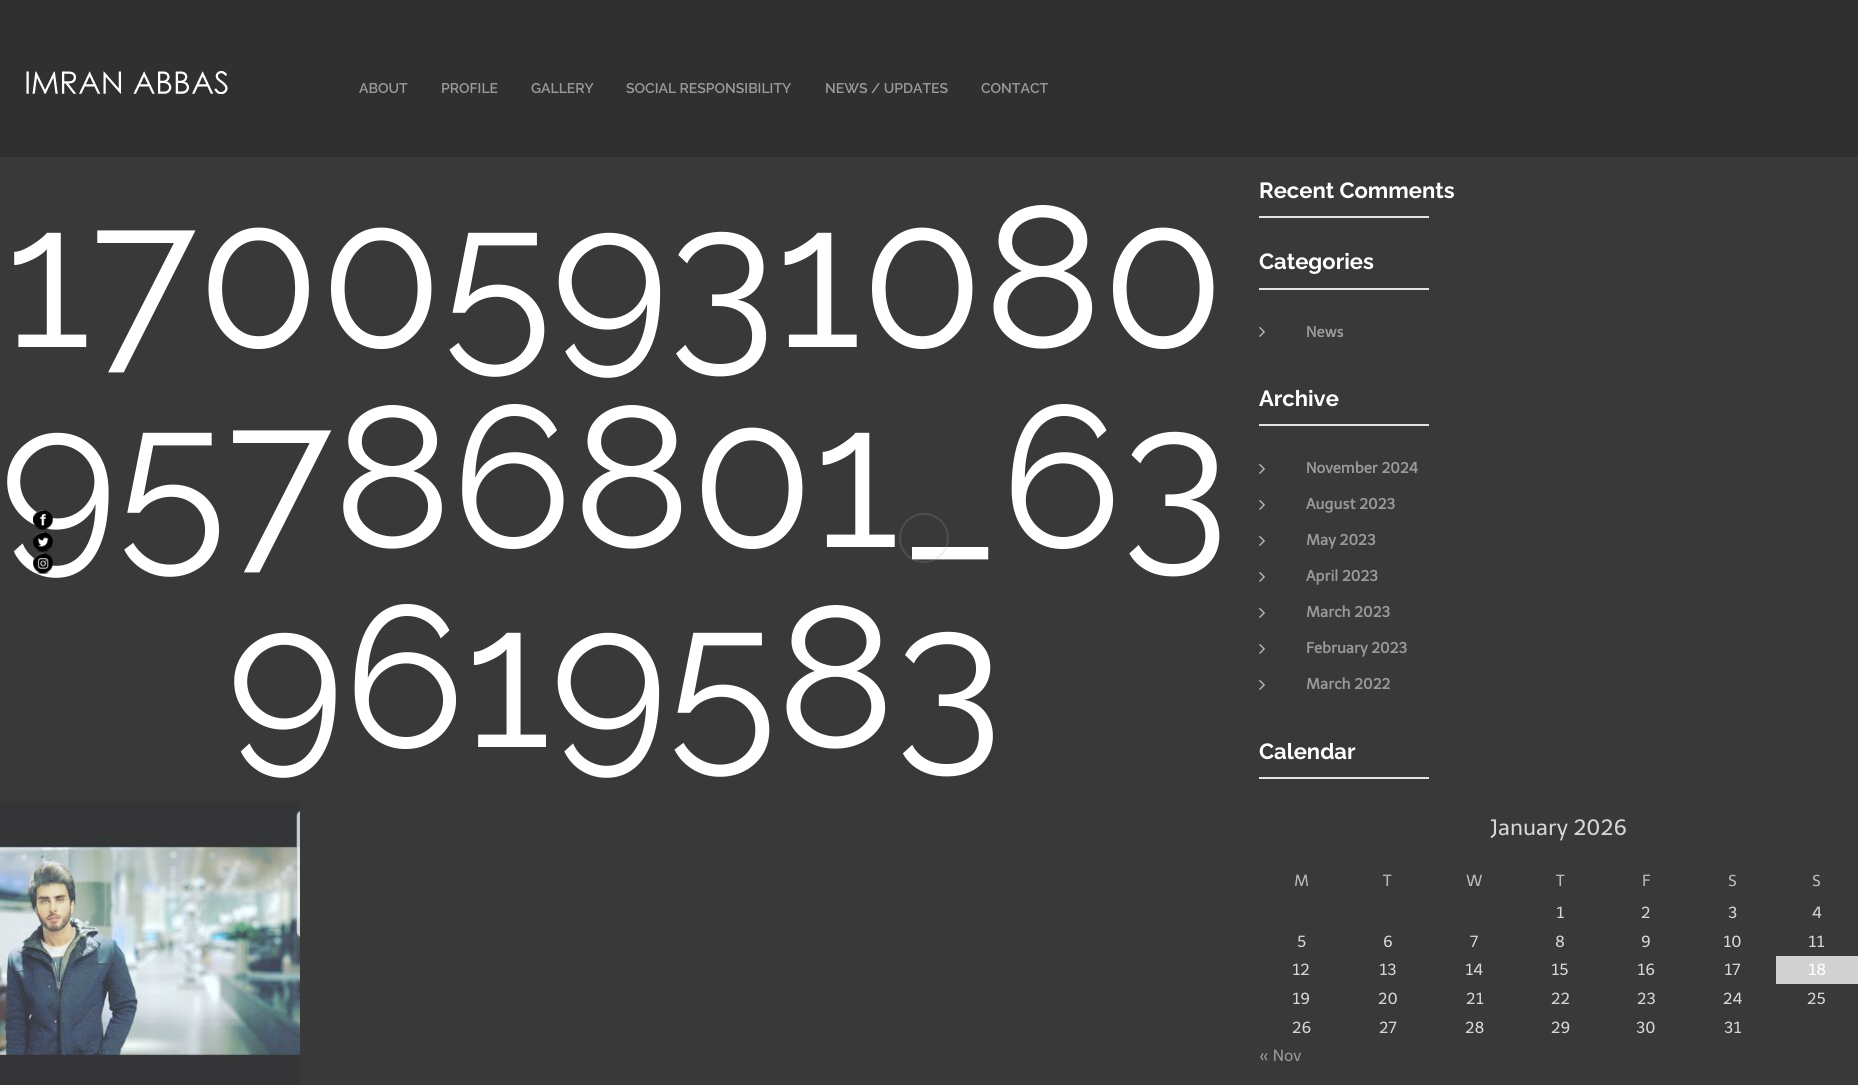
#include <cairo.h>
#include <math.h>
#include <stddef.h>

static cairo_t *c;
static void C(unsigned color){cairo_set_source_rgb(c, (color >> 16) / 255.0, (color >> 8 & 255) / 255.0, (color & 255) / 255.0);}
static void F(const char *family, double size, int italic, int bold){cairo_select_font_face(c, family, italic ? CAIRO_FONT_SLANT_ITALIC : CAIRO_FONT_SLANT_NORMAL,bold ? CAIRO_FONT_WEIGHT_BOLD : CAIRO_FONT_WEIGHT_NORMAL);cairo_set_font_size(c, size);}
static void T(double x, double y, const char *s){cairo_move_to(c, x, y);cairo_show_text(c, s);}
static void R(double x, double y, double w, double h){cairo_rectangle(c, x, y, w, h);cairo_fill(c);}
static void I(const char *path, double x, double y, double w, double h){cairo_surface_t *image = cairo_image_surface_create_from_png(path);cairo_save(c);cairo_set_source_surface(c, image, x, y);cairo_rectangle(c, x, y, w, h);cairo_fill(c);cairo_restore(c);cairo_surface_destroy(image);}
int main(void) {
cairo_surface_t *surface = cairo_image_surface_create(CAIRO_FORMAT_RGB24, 1858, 1085);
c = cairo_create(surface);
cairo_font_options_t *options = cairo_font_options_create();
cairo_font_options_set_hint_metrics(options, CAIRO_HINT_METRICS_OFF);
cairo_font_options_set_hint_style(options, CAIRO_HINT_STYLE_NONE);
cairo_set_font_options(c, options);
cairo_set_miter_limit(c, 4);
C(0x393939);
cairo_paint(c);
C(0x303030);
R(0,0,1858,157);
I("1.png",26,71,202,23);
F("Raleway SemiBold",14,0,0);
C(0x9a9a9a);
T(359,93,"ABOUT");
T(441,93,"PROFILE");
T(531,93,"GALLERY");
T(626,93,"SOCIAL RESPONSIBILITY");
T(825,93,"NEWS / UPDATES");
T(981,93,"CONTACT");
F("Raleway",200,0,0);
C(0xffffff);
T(5,347,"17005931080");
T(0,547,"95786801_63");
T(227,747,"9619583");
I("2.png",0,801,300,284);
F("Raleway",22,0,1);
T(1259,198,"Recent Comments");
C(0xe5e5e5);
R(1259,216,170,2);
C(0xffffff);
T(1259,269,"Categories");
C(0xe5e5e5);
R(1259,288,170,2);
I("3.png",1259,327,6,10);
F("Telex",15,0,1);
C(0x9a9a9a);
T(1306,337,"News");
F("Raleway",22,0,1);
C(0xffffff);
T(1259,406,"Archive");
C(0xe5e5e5);
R(1259,424,170,2);
I("3.png",1259,464,6,10);
F("Telex",15,0,1);
C(0x9a9a9a);
T(1306,473,"November 2024");
I("3.png",1259,500,6,10);
T(1306,509,"August 2023");
I("3.png",1259,536,6,10);
T(1306,545,"May 2023");
I("3.png",1259,572,6,10);
T(1306,581,"April 2023");
I("3.png",1259,608,6,10);
T(1306,617,"March 2023");
I("3.png",1259,644,6,10);
T(1306,653,"February 2023");
I("3.png",1259,680,6,10);
T(1306,689,"March 2022");
F("Raleway",22,0,1);
C(0xffffff);
T(1259,759,"Calendar");
C(0xe5e5e5);
R(1259,777,170,2);
F("Telex",22,0,0);
C(0xd6d6d6);
T(1490,835,"January 2026");
F("Telex",16,0,0);
C(0xbababa);
T(1294,886,"M");
T(1383,886,"T");
T(1466,886,"W");
T(1556,886,"T");
T(1642,886,"F");
T(1728,886,"S");
T(1812,886,"S");
C(0xd6d6d6);
T(1556,918,"1");
T(1641,918,"2");
T(1728,918,"3");
T(1812,918,"4");
T(1297,947,"5");
T(1383,947,"6");
T(1470,947,"7");
T(1555,947,"8");
T(1641,947,"9");
T(1723,947,"10");
T(1808,947,"11");
T(1292,975,"12");
T(1379,975,"13");
T(1465,975,"14");
T(1551,975,"15");
T(1637,975,"16");
T(1724,975,"17");
C(0xd1d1d1);
R(1776,956,82,28);
C(0xffffff);
T(1808,975,"18");
C(0xd6d6d6);
T(1292,1004,"19");
T(1378,1004,"20");
T(1466,1004,"21");
T(1551,1004,"22");
T(1637,1004,"23");
T(1723,1004,"24");
T(1807,1004,"25");
T(1292,1033,"26");
T(1379,1033,"27");
T(1465,1033,"28");
T(1551,1033,"29");
T(1636,1033,"30");
T(1724,1033,"31");
C(0x9a9a9a);
T(1259,1061,"« Nov");
I("4.png",33,510,20,20);
I("5.png",33,532,20,20);
I("6.png",33,553,20,21);
cairo_arc(c,924,538,24,0,2 * M_PI);
cairo_set_source_rgba(c,0.667,0.667,0.667,0.19);
cairo_stroke(c);
cairo_surface_write_to_png(surface, "o.png");
cairo_font_options_destroy(options);
cairo_destroy(c);
cairo_surface_destroy(surface);
return 0;
}
